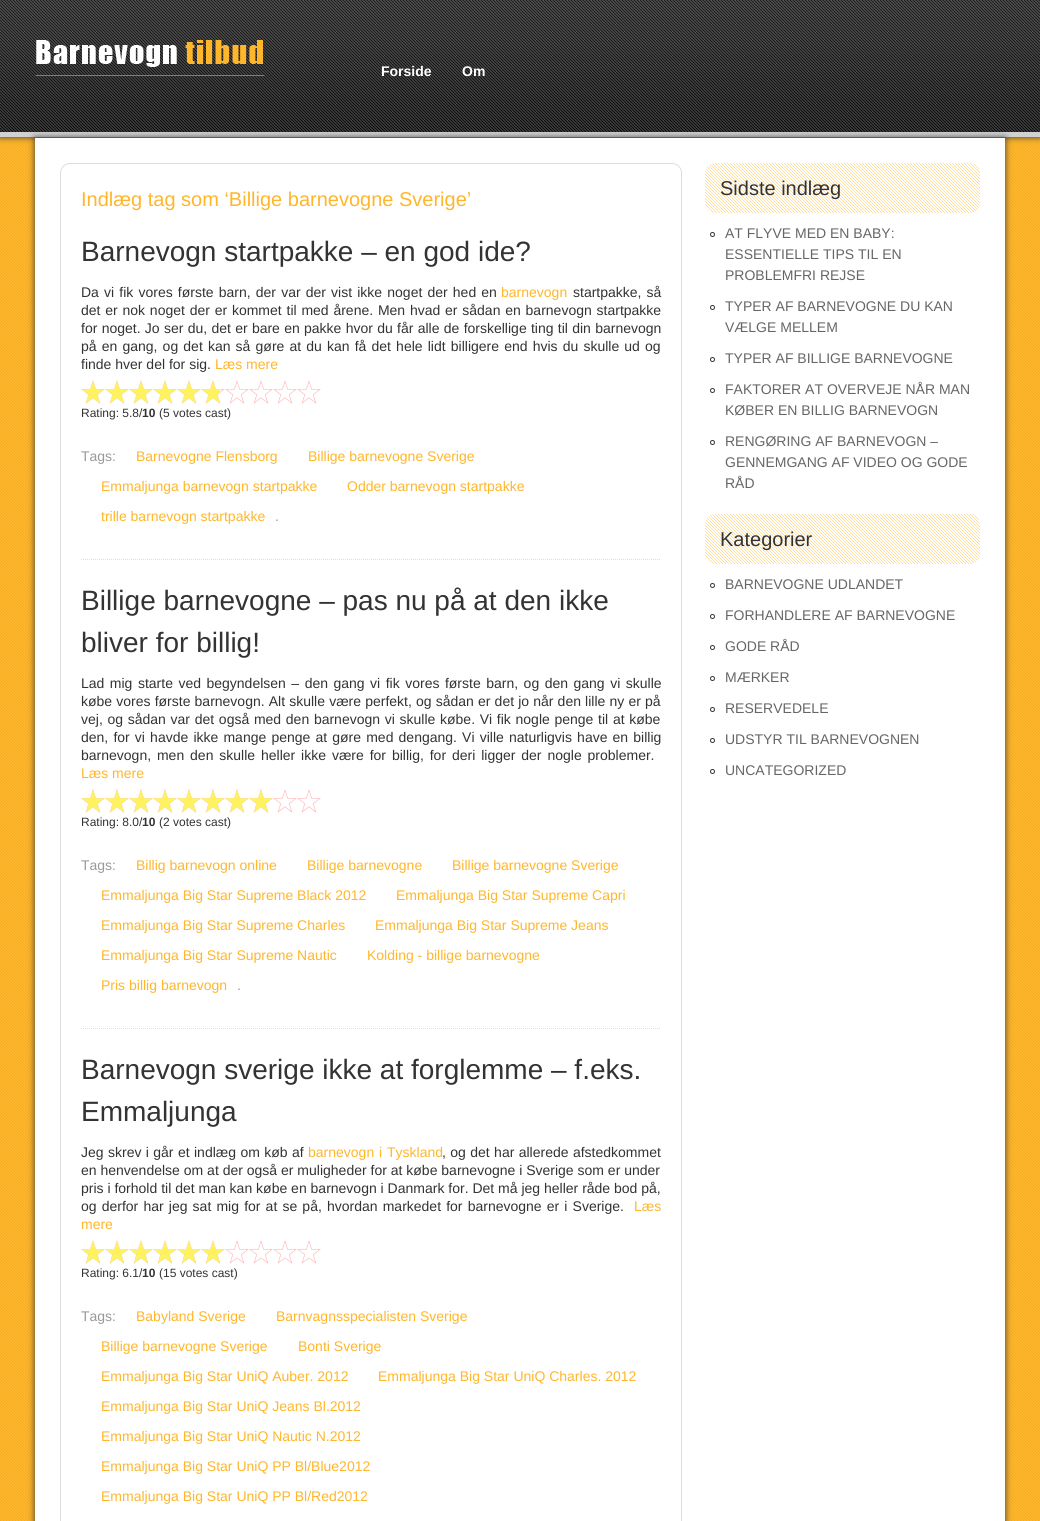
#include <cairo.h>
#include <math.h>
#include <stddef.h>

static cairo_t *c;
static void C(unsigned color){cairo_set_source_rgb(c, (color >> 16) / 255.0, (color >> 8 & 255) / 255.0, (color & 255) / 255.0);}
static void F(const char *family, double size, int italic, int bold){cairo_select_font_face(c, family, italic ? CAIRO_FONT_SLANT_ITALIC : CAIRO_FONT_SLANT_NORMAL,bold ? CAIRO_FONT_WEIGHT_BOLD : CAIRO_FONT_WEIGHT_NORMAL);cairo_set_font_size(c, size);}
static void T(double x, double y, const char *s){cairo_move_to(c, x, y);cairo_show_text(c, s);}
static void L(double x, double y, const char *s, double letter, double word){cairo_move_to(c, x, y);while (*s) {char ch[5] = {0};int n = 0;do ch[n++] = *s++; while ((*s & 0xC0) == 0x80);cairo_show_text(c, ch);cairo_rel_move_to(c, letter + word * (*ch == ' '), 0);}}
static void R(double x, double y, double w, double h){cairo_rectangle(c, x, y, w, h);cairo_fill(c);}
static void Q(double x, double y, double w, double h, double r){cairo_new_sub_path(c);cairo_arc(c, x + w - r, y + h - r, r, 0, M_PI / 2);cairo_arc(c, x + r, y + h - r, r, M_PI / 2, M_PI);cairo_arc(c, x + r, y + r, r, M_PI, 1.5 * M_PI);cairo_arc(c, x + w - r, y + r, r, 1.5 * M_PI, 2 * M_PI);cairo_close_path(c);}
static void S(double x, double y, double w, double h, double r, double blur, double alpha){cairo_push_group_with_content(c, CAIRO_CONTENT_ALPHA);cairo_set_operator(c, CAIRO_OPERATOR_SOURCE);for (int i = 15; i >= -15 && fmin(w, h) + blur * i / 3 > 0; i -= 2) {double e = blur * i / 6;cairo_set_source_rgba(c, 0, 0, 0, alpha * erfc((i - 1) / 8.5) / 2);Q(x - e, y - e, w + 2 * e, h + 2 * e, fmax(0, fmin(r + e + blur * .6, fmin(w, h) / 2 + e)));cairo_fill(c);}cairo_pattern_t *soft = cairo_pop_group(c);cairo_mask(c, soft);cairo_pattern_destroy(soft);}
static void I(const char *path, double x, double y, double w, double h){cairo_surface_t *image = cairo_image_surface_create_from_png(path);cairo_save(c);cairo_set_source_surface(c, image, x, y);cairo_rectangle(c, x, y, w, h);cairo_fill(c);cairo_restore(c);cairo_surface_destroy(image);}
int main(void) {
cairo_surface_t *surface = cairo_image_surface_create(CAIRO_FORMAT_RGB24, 1040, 1521);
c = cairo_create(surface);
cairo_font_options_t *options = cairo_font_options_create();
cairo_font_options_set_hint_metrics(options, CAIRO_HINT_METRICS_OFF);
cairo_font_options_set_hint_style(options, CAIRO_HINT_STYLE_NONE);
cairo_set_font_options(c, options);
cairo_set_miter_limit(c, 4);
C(0xffffff);
cairo_paint(c);
I("1.png",0,137,1040,1384);
C(0x333333);
S(0,0,1040,137,0,3.5,1);
I("2.png",0,0,1040,137);
I("3.png",35,40,230,36);
F("Liberation Sans",14,0,1);
C(0xffffff);
T(381,76,"Forside");
T(462,76,"Om");
C(0x333333);
S(35,138,970,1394,0,3.5,1);
C(0xffffff);
R(35,138,970,1383);
Q(60.5,163.5,621,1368,9.5);
C(0xdddddd);
cairo_set_line_width(c,1);
cairo_stroke(c);
F("Liberation Sans",20,0,0);
C(0xffb62a);
T(81,206,"Indlæg tag som ‘Billige barnevogne Sverige’");
cairo_new_path(c);
cairo_move_to(c,81,559.5);
cairo_line_to(c,661,559.5);
C(0xdddddd);
cairo_set_dash(c,(double[]){1,1},2,0);
cairo_stroke(c);
F("Liberation Sans",28,0,0);
C(0x333333);
T(81,261,"Barnevogn startpakke – en god ide?");
F("Liberation Sans",14,0,0);
L(81,297,"Da vi fik vores første barn, der var der vist ikke noget der hed en",0,1.25);
C(0xffb62a);
T(501,297,"barnevogn");
C(0x333333);
L(573,297,"startpakke, så",0,1.25);
L(81,315,"det er nok noget der er kommet til med årene. Men hvad er sådan en barnevogn startpakke",0,.9);
L(81,333,"for noget. Jo ser du, det er bare en pakke hvor du får alle de forskellige ting til din barnevogn",0,.4);
L(81,351,"på en gang, og det kan så gøre at du kan få det hele lidt billigere end hvis du skulle ud og",0,1.25);
T(81,369,"finde hver del for sig.");
C(0xffb62a);
T(215,369,"Læs mere");
I("4.png",81,380,240,24);
I("5.png",81,380,139,24);
F("Liberation Sans",12,0,0);
C(0x333333);
T(81,417,"Rating: 5.8/");
F("Liberation Sans",12,0,1);
T(142,417,"10");
F("Liberation Sans",12,0,0);
T(159,417,"(5 votes cast)");
F("Liberation Sans",14,0,0);
C(0x999999);
T(81,461,"Tags:");
C(0xffb62a);
T(136,461,"Barnevogne Flensborg");
T(308,461,"Billige barnevogne Sverige");
T(101,491,"Emmaljunga barnevogn startpakke");
T(347,491,"Odder barnevogn startpakke");
T(101,521,"trille barnevogn startpakke");
C(0x999999);
T(275,521,".");
cairo_new_path(c);
cairo_move_to(c,81,1028.5);
cairo_line_to(c,661,1028.5);
C(0xdddddd);
cairo_stroke(c);
F("Liberation Sans",28,0,0);
C(0x333333);
T(81,610,"Billige barnevogne – pas nu på at den ikke");
T(81,652,"bliver for billig!");
F("Liberation Sans",14,0,0);
L(81,688,"Lad mig starte ved begyndelsen – den gang vi fik vores første barn, og den gang vi skulle",0,1.6);
L(81,706,"købe vores første barnevogn. Alt skulle være perfekt, og sådan er det jo når den lille ny er på",0,.25);
L(81,724,"vej, og sådan var det også med den barnevogn vi skulle købe. Vi fik nogle penge til at købe",0,.8);
L(81,742,"den, for vi havde ikke mange penge at gøre med dengang. Vi ville naturligvis have en billig",0,1.25);
L(81,760,"barnevogn, men den skulle heller ikke være for billig, for deri ligger der nogle problemer.",0,2);
C(0xffb62a);
T(81,778,"Læs mere");
I("4.png",81,789,240,24);
I("6.png",81,789,192,24);
F("Liberation Sans",12,0,0);
C(0x333333);
T(81,826,"Rating: 8.0/");
F("Liberation Sans",12,0,1);
T(142,826,"10");
F("Liberation Sans",12,0,0);
T(159,826,"(2 votes cast)");
F("Liberation Sans",14,0,0);
C(0x999999);
T(81,870,"Tags:");
C(0xffb62a);
T(136,870,"Billig barnevogn online");
T(307,870,"Billige barnevogne");
T(452,870,"Billige barnevogne Sverige");
T(101,900,"Emmaljunga Big Star Supreme Black 2012");
T(396,900,"Emmaljunga Big Star Supreme Capri");
T(101,930,"Emmaljunga Big Star Supreme Charles");
T(375,930,"Emmaljunga Big Star Supreme Jeans");
T(101,960,"Emmaljunga Big Star Supreme Nautic");
T(367,960,"Kolding - billige barnevogne");
T(101,990,"Pris billig barnevogn");
C(0x999999);
T(237,990,".");
F("Liberation Sans",28,0,0);
C(0x333333);
T(81,1079,"Barnevogn sverige ikke at forglemme – f.eks.");
T(81,1121,"Emmaljunga");
F("Liberation Sans",14,0,0);
L(81,1157,"Jeg skrev i går et indlæg om køb af",0,.5);
C(0xffb62a);
L(308,1157,"barnevogn i Tyskland",0,1);
C(0x333333);
L(442,1157,", og det har allerede afstedkommet",0,.5);
T(81,1175,"en henvendelse om at der også er muligheder for at købe barnevogne i Sverige som er under");
T(81,1193,"pris i forhold til det man kan købe en barnevogn i Danmark for. Det må jeg heller råde bod på,");
L(81,1211,"og derfor har jeg sat mig for at se på, hvordan markedet for barnevogne er i Sverige.",0,1.25);
C(0xffb62a);
T(634,1211,"Læs");
T(81,1229,"mere");
I("4.png",81,1240,240,24);
I("7.png",81,1240,147,24);
F("Liberation Sans",12,0,0);
C(0x333333);
T(81,1277,"Rating: 6.1/");
F("Liberation Sans",12,0,1);
T(142,1277,"10");
F("Liberation Sans",12,0,0);
T(159,1277,"(15 votes cast)");
F("Liberation Sans",14,0,0);
C(0x999999);
T(81,1321,"Tags:");
C(0xffb62a);
T(136,1321,"Babyland Sverige");
T(276,1321,"Barnvagnsspecialisten Sverige");
T(101,1351,"Billige barnevogne Sverige");
T(298,1351,"Bonti Sverige");
T(101,1381,"Emmaljunga Big Star UniQ Auber. 2012");
T(378,1381,"Emmaljunga Big Star UniQ Charles. 2012");
T(101,1411,"Emmaljunga Big Star UniQ Jeans Bl.2012");
T(101,1441,"Emmaljunga Big Star UniQ Nautic N.2012");
T(101,1471,"Emmaljunga Big Star UniQ PP Bl/Blue2012");
T(101,1501,"Emmaljunga Big Star UniQ PP Bl/Red2012");
I("8.png",705,163,275,50);
F("Liberation Sans",20,0,0);
C(0x333333);
T(720,195,"Sidste indlæg");
cairo_new_path(c);
cairo_arc(c,712.5,234.5,2,0,2 * M_PI);
cairo_set_dash(c,NULL,0,0);
cairo_stroke(c);
F("Liberation Sans",14,0,0);
C(0x666666);
T(725,238,"AT FLYVE MED EN BABY:");
T(725,259,"ESSENTIELLE TIPS TIL EN");
T(725,280,"PROBLEMFRI REJSE");
cairo_new_path(c);
cairo_arc(c,712.5,307.5,2,0,2 * M_PI);
C(0x333333);
cairo_stroke(c);
C(0x666666);
T(725,311,"TYPER AF BARNEVOGNE DU KAN");
T(725,332,"VÆLGE MELLEM");
cairo_new_path(c);
cairo_arc(c,712.5,359.5,2,0,2 * M_PI);
C(0x333333);
cairo_stroke(c);
C(0x666666);
T(725,363,"TYPER AF BILLIGE BARNEVOGNE");
cairo_new_path(c);
cairo_arc(c,712.5,390.5,2,0,2 * M_PI);
C(0x333333);
cairo_stroke(c);
C(0x666666);
T(725,394,"FAKTORER AT OVERVEJE NÅR MAN");
T(725,415,"KØBER EN BILLIG BARNEVOGN");
cairo_new_path(c);
cairo_arc(c,712.5,442.5,2,0,2 * M_PI);
C(0x333333);
cairo_stroke(c);
C(0x666666);
T(725,446,"RENGØRING AF BARNEVOGN –");
T(725,467,"GENNEMGANG AF VIDEO OG GODE");
T(725,488,"RÅD");
I("8.png",705,514,275,50);
F("Liberation Sans",20,0,0);
C(0x333333);
T(720,546,"Kategorier");
cairo_new_path(c);
cairo_arc(c,712.5,585.5,2,0,2 * M_PI);
cairo_stroke(c);
F("Liberation Sans",14,0,0);
C(0x666666);
T(725,589,"BARNEVOGNE UDLANDET");
cairo_new_path(c);
cairo_arc(c,712.5,616.5,2,0,2 * M_PI);
C(0x333333);
cairo_stroke(c);
C(0x666666);
T(725,620,"FORHANDLERE AF BARNEVOGNE");
cairo_new_path(c);
cairo_arc(c,712.5,647.5,2,0,2 * M_PI);
C(0x333333);
cairo_stroke(c);
C(0x666666);
T(725,651,"GODE RÅD");
cairo_new_path(c);
cairo_arc(c,712.5,678.5,2,0,2 * M_PI);
C(0x333333);
cairo_stroke(c);
C(0x666666);
T(725,682,"MÆRKER");
cairo_new_path(c);
cairo_arc(c,712.5,709.5,2,0,2 * M_PI);
C(0x333333);
cairo_stroke(c);
C(0x666666);
T(725,713,"RESERVEDELE");
cairo_new_path(c);
cairo_arc(c,712.5,740.5,2,0,2 * M_PI);
C(0x333333);
cairo_stroke(c);
C(0x666666);
T(725,744,"UDSTYR TIL BARNEVOGNEN");
cairo_new_path(c);
cairo_arc(c,712.5,771.5,2,0,2 * M_PI);
C(0x333333);
cairo_stroke(c);
C(0x666666);
T(725,775,"UNCATEGORIZED");
cairo_surface_write_to_png(surface, "o.png");
cairo_font_options_destroy(options);
cairo_destroy(c);
cairo_surface_destroy(surface);
return 0;
}
